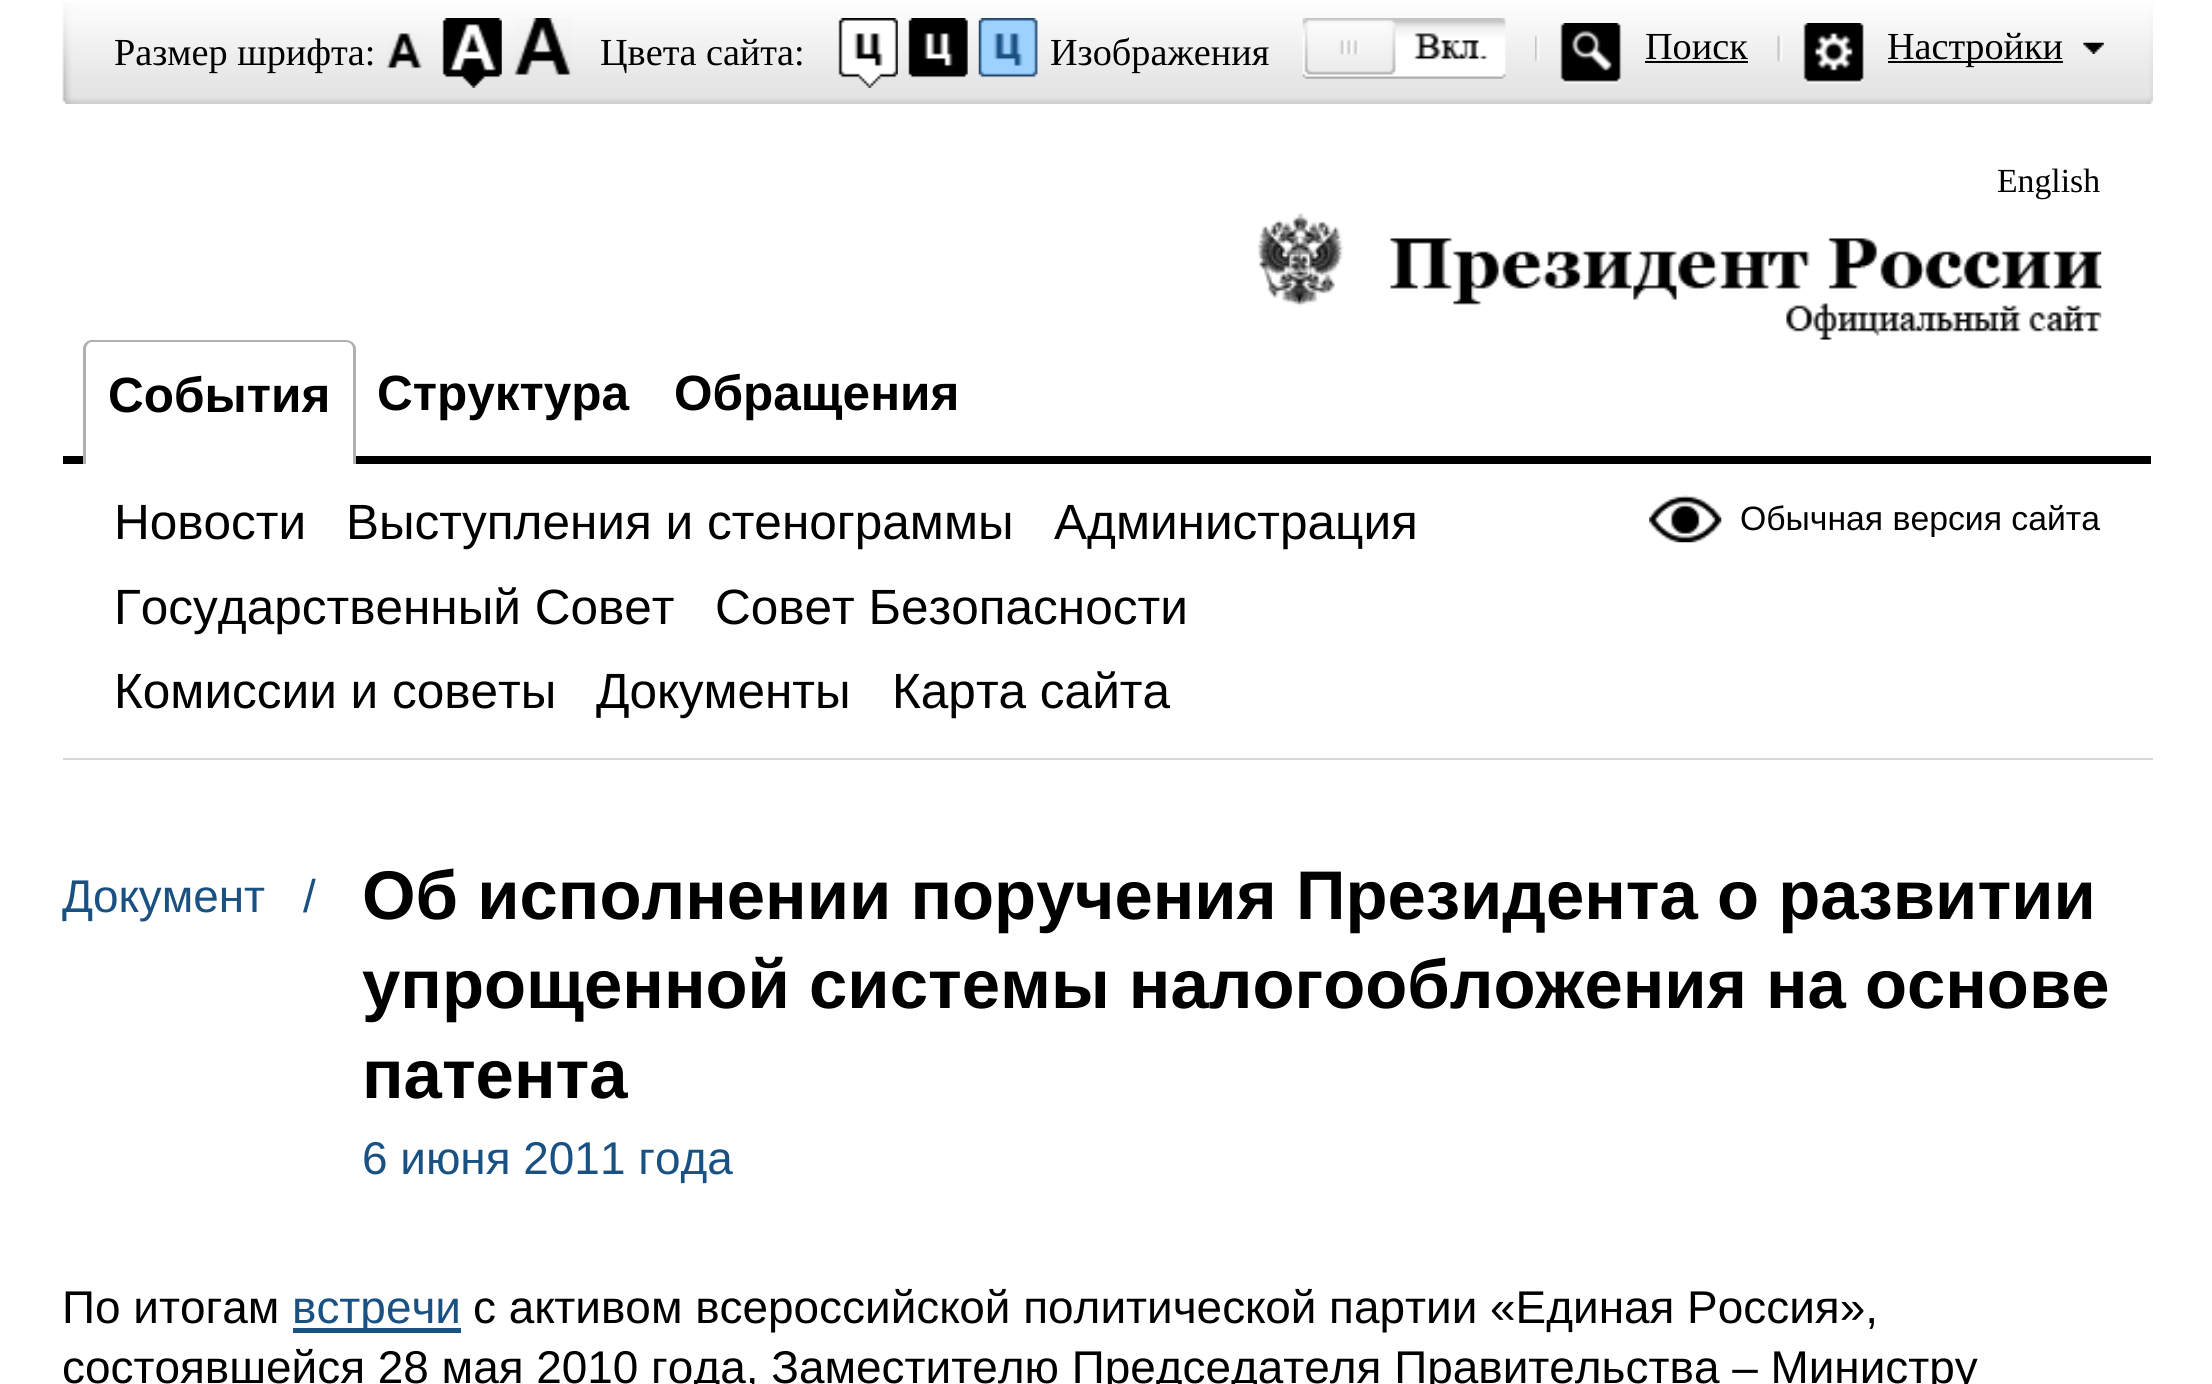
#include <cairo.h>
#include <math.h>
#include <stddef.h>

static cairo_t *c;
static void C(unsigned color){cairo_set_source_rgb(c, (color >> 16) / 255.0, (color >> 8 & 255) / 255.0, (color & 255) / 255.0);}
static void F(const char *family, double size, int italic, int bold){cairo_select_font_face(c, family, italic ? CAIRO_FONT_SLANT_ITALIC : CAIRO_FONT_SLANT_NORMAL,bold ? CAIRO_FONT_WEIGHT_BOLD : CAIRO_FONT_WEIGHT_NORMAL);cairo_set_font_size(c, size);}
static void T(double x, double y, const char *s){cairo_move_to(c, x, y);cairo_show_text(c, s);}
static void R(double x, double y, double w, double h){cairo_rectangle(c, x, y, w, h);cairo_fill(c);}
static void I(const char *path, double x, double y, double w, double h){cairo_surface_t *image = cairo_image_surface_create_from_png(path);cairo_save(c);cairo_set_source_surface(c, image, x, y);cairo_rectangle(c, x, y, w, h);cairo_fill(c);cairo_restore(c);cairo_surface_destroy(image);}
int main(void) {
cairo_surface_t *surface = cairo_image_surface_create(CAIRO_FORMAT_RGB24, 2212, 1384);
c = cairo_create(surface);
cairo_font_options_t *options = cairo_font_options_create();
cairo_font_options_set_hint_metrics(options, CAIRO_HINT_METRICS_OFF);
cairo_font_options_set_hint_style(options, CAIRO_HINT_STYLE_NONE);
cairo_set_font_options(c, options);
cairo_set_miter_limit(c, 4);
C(0xffffff);
cairo_paint(c);
I("1.png",62,2,2091,102);
F("Liberation Serif",38.25,0,0);
C(0x000000);
T(114,65,"Размер шрифта:");
I("2.png",386,33,36,36);
I("3.png",442,18,60,70);
I("4.png",514,18,58,57);
T(600,65,"Цвета сайта:");
I("5.png",838,18,60,70);
I("6.png",908,18,60,60);
I("7.png",978,18,60,60);
T(1050,65,"Изображения");
I("8.png",1302,18,204,61);
I("9.png",1535,23,87,61);
T(1645,59,"Поиск");
R(1645,61,103,2);
I("10.png",1777,23,87,61);
R(1888,61,175,2);
T(1887,59,"Настройки");
I("11.png",2083,42,21,12);
F("Liberation Serif",33.75,0,0);
T(1997,192,"English");
I("12.png",1258,213,844,127);
C(0xd8d8d8);
R(63,758,2090,2);
C(0x000000);
R(63,456,2088,8);
C(0xffffff);
cairo_new_path(c);
cairo_move_to(c,92,340);
cairo_line_to(c,347,340);
cairo_curve_to(c,352,340,356,344,356,349);
cairo_line_to(c,356,464);
cairo_line_to(c,83,464);
cairo_line_to(c,83,349);
cairo_curve_to(c,83,344,87,340,92,340);
cairo_close_path(c);
cairo_fill(c);
C(0xb0b0b0);
cairo_set_fill_rule(c,CAIRO_FILL_RULE_EVEN_ODD);
cairo_new_path(c);
cairo_move_to(c,92,340);
cairo_line_to(c,346,340);
cairo_curve_to(c,351,340,356,344,356,349);
cairo_line_to(c,356,464);
cairo_line_to(c,83,464);
cairo_line_to(c,83,349);
cairo_curve_to(c,83,344,87,340,92,340);
cairo_close_path(c);
cairo_move_to(c,92,342);
cairo_line_to(c,346,342);
cairo_curve_to(c,350,342,353,345,353,349);
cairo_line_to(c,353,464);
cairo_line_to(c,86,464);
cairo_line_to(c,86,349);
cairo_curve_to(c,86,345,89,342,92,342);
cairo_close_path(c);
cairo_fill(c);
F("Liberation Sans",49.5,0,1);
C(0x000000);
T(108,412,"События");
T(377,410,"Структура");
T(674,410,"Обращения");
F("Liberation Sans",49.5,0,0);
T(114,539,"Новости");
T(346,539,"Выступления и стенограммы");
T(1054,539,"Администрация");
T(114,624,"Государственный Совет");
T(715,624,"Совет Безопасности");
T(114,708,"Комиссии и советы");
T(596,708,"Документы");
T(892,708,"Карта сайта");
I("13.png",1649,495,73,48);
F("Liberation Sans",33.75,0,0);
T(1740,530,"Обычная версия сайта");
F("Liberation Sans",45.9,0,0);
C(0x195183);
T(62,912,"Документ");
T(303,912,"/");
F("Liberation Sans",68.85,0,1);
C(0x000000);
T(362,919,"Об исполнении поручения Президента о развитии");
T(362,1008,"упрощенной системы налогообложения на основе");
T(362,1098,"патента");
F("Liberation Sans",45.9,0,0);
C(0x195183);
T(362,1174,"6 июня 2011 года");
C(0x000000);
T(62,1323,"По итогам");
C(0x195183);
R(293,1328,168,5);
T(292,1323,"встречи");
C(0x000000);
T(473,1323,"с активом всероссийской политической партии «Единая Россия»,");
T(62,1383,"состоявшейся 28 мая 2010 года, Заместителю Председателя Правительства – Министру");
cairo_surface_write_to_png(surface, "o.png");
cairo_font_options_destroy(options);
cairo_destroy(c);
cairo_surface_destroy(surface);
return 0;
}
